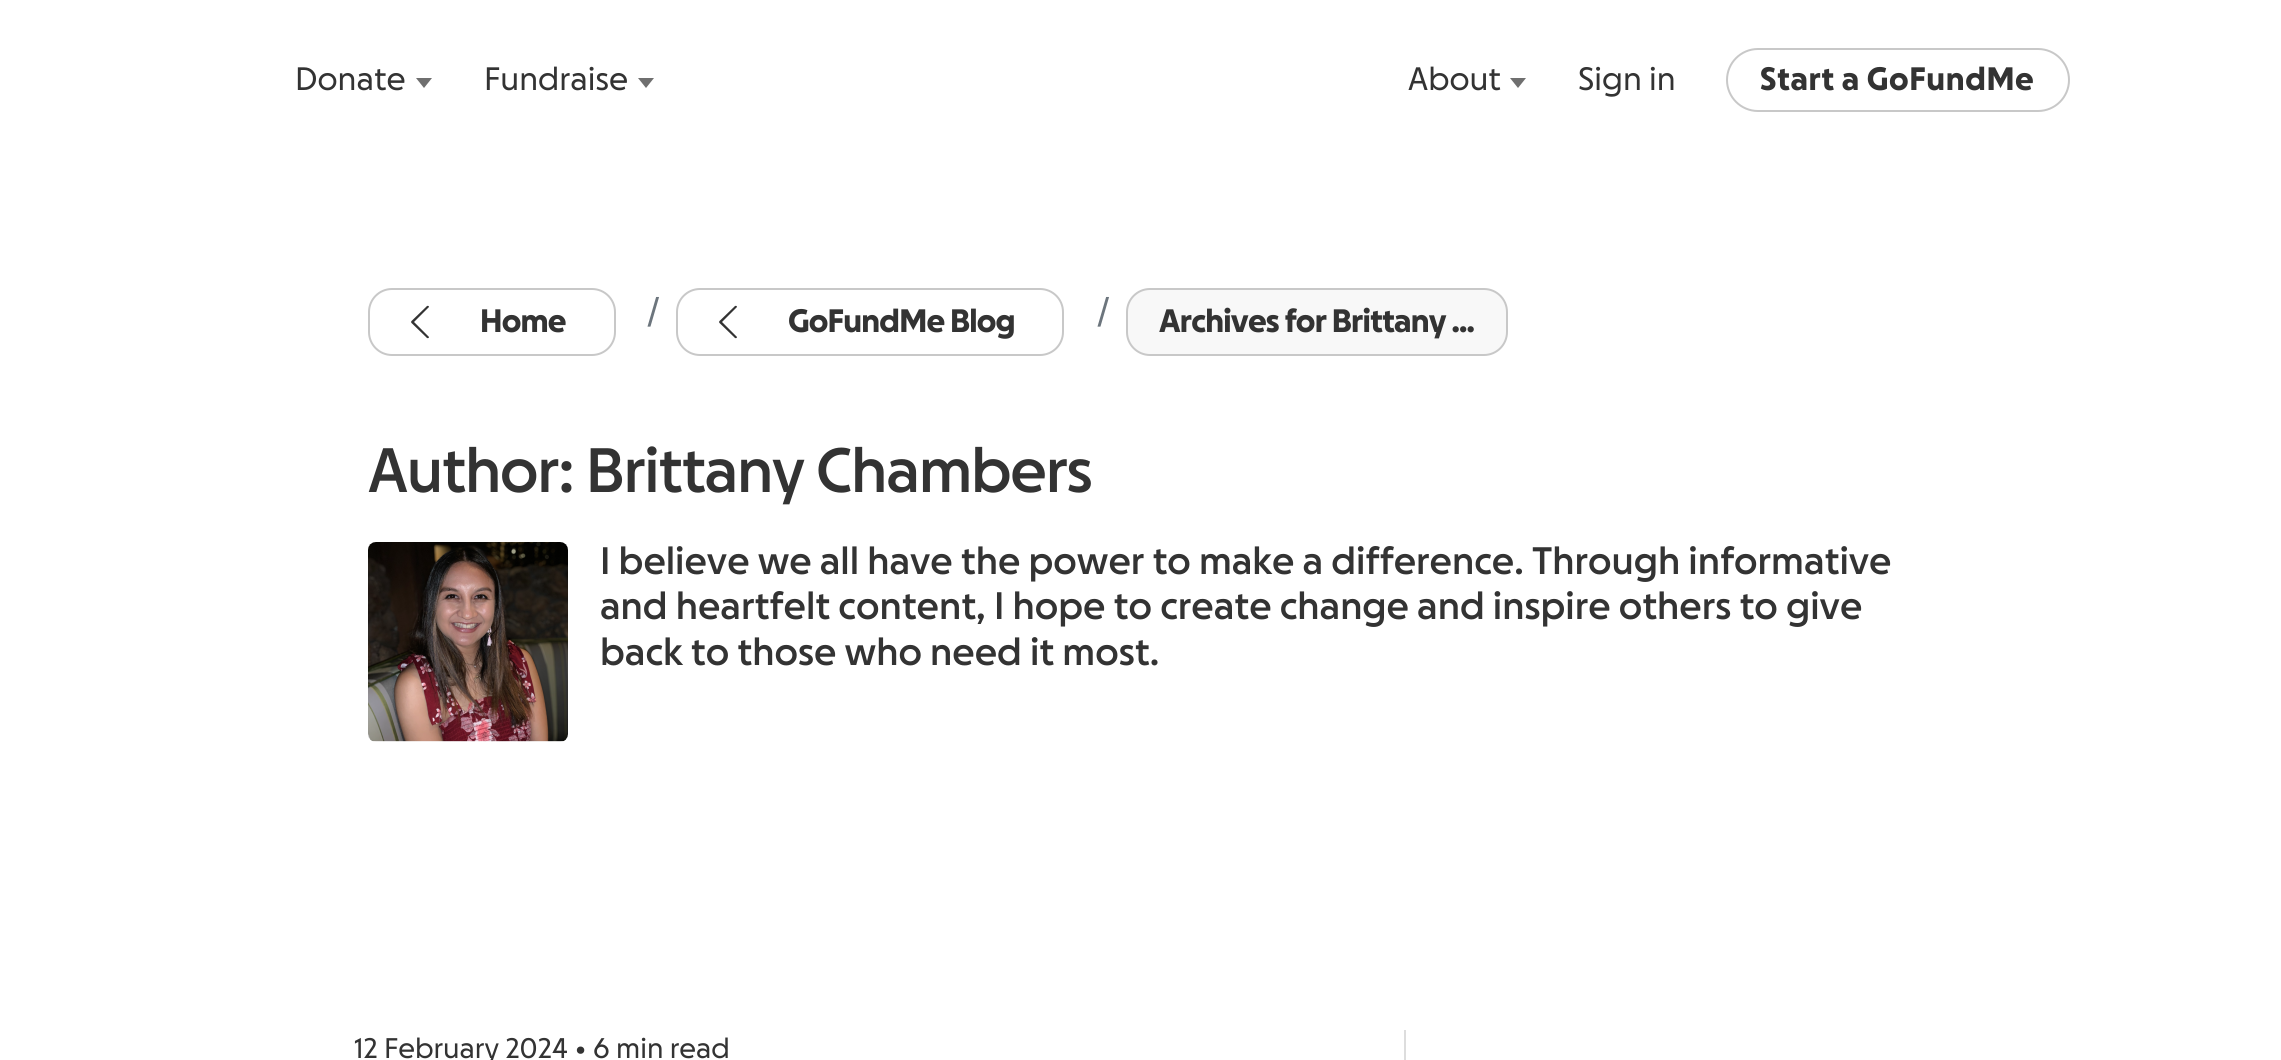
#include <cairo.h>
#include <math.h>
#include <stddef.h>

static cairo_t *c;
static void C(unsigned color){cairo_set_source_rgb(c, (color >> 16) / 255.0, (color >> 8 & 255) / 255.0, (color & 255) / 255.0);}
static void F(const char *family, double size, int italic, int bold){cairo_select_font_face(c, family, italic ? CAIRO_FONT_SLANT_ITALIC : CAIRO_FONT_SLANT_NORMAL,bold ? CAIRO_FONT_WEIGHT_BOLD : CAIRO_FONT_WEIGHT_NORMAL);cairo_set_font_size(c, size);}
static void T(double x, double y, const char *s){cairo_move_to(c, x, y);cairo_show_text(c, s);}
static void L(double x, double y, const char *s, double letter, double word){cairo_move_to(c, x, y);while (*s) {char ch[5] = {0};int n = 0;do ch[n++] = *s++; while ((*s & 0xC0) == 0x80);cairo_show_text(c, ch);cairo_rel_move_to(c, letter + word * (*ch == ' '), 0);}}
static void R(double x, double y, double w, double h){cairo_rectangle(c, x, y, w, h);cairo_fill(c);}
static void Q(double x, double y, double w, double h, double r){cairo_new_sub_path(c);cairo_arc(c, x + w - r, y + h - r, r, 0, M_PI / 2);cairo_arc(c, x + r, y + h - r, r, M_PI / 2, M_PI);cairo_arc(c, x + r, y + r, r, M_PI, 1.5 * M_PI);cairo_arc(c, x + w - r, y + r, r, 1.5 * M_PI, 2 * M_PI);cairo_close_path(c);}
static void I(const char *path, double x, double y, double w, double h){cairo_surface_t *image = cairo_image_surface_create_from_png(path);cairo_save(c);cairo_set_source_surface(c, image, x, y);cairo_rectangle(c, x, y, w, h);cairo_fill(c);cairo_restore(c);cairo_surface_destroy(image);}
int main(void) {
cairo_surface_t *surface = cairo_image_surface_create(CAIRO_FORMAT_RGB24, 2281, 1060);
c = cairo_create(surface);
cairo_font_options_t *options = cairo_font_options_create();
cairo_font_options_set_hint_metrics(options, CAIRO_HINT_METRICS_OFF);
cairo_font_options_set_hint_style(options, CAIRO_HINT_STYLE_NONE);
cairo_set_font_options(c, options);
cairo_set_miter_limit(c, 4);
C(0xffffff);
cairo_paint(c);
F("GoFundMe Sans",32,0,0);
C(0x333333);
T(295,90,"Donate");
C(0x6f6f6f);
cairo_new_path(c);
cairo_move_to(c,416,78);
cairo_line_to(c,432,78);
cairo_line_to(c,424,88);
cairo_close_path(c);
cairo_fill(c);
C(0x333333);
T(484,90,"Fundraise");
C(0x6f6f6f);
cairo_new_path(c);
cairo_move_to(c,638,78);
cairo_line_to(c,654,78);
cairo_line_to(c,646,88);
cairo_close_path(c);
cairo_fill(c);
C(0x333333);
T(1408,90,"About");
C(0x6f6f6f);
cairo_new_path(c);
cairo_move_to(c,1510,78);
cairo_line_to(c,1526,78);
cairo_line_to(c,1518,88);
cairo_close_path(c);
cairo_fill(c);
C(0x333333);
T(1578,90,"Sign in");
Q(1727,49,342,62,31);
C(0xc8c8c8);
cairo_stroke(c);
F("GoFundMe Sans",32,0,1);
C(0x333333);
L(1760,90,"Start a GoFundMe",.6,0);
Q(369,289,246,66,23);
C(0xc8c8c8);
cairo_stroke(c);
C(0x333333);
cairo_set_fill_rule(c,CAIRO_FILL_RULE_EVEN_ODD);
cairo_new_path(c);
cairo_move_to(c,414,322);
cairo_line_to(c,429,337);
cairo_curve_to(c,429,338,428,338.5,427,338);
cairo_line_to(c,411.5,323);
cairo_line_to(c,411,322);
cairo_line_to(c,411.5,321);
cairo_line_to(c,427,306);
cairo_curve_to(c,428,305.5,429,306,429,307);
cairo_close_path(c);
cairo_fill(c);
L(480,332,"Home",-.8,0);
F("GoFundMe Sans",32,0,0);
C(0x6c757d);
T(647,322,"/");
Q(677,289,386,66,23);
C(0xc8c8c8);
cairo_stroke(c);
C(0x333333);
cairo_new_path(c);
cairo_move_to(c,722,322);
cairo_line_to(c,737,337);
cairo_curve_to(c,737,338,736,338.5,735,338);
cairo_line_to(c,719.5,323);
cairo_line_to(c,719,322);
cairo_line_to(c,719.5,321);
cairo_line_to(c,735,306);
cairo_curve_to(c,736,305.5,737,306,737,307);
cairo_close_path(c);
cairo_fill(c);
F("GoFundMe Sans",32,0,1);
L(788,332,"GoFundMe Blog",-.8,0);
F("GoFundMe Sans",32,0,0);
C(0x6c757d);
T(1097,322,"/");
C(0xf8f8f8);
Q(1127,289,380,66,23);
cairo_fill_preserve(c);
C(0xc8c8c8);
cairo_stroke(c);
F("GoFundMe Sans",32,0,1);
C(0x333333);
L(1159,332,"Archives for Brittany ...",-.8,0);
F("GoFundMe Sans Medium",61.75,0,0);
L(368,492,"Author: Brittany Chambers",-1.25,0);
I("1.png",368,542,200,200);
F("GoFundMe Sans Medium",37.75,0,0);
T(600,574,"I believe we all have the power to make a difference. Through informative");
T(600,619,"and heartfelt content, I hope to create change and inspire others to give");
T(600,665,"back to those who need it most.");
F("GoFundMe Sans",28,0,0);
T(354,1058,"12 February 2024 • 6 min read");
C(0xdddddd);
R(1404,1030,2,30);
cairo_surface_write_to_png(surface, "o.png");
cairo_font_options_destroy(options);
cairo_destroy(c);
cairo_surface_destroy(surface);
return 0;
}
